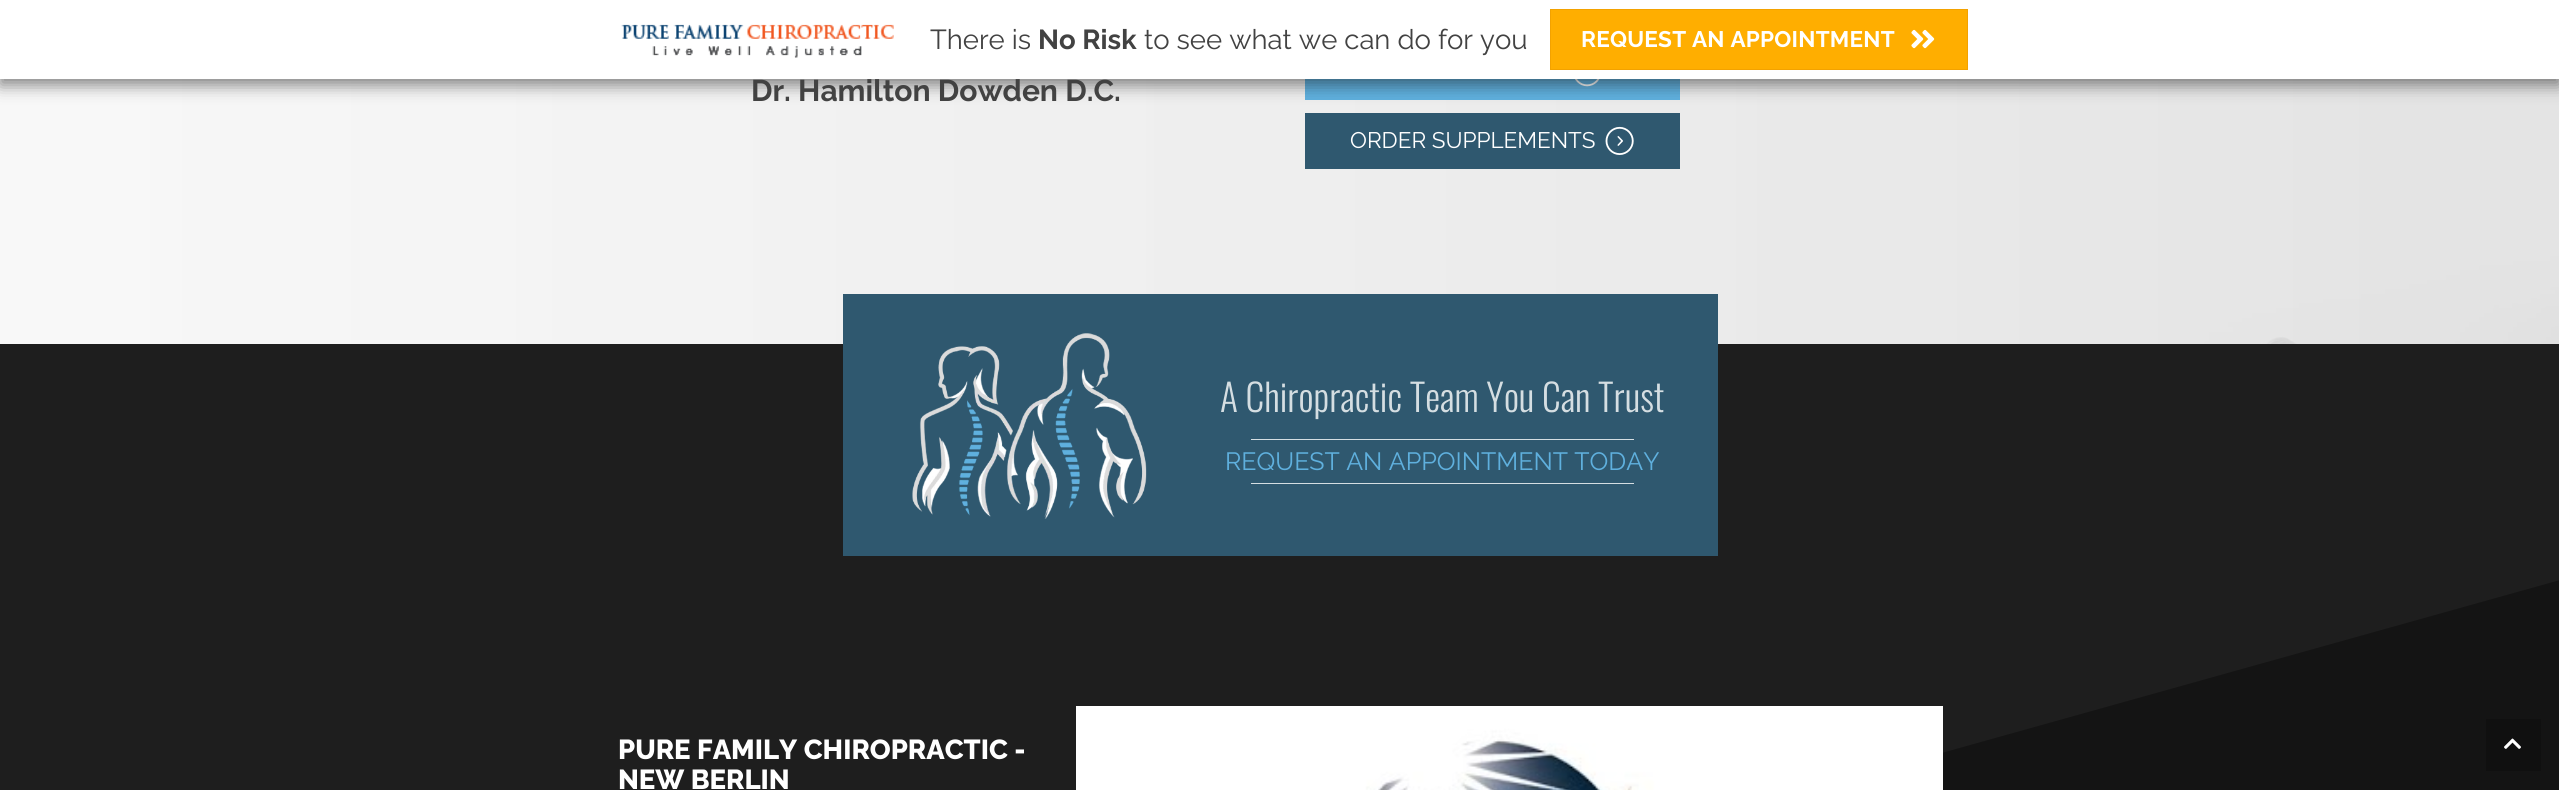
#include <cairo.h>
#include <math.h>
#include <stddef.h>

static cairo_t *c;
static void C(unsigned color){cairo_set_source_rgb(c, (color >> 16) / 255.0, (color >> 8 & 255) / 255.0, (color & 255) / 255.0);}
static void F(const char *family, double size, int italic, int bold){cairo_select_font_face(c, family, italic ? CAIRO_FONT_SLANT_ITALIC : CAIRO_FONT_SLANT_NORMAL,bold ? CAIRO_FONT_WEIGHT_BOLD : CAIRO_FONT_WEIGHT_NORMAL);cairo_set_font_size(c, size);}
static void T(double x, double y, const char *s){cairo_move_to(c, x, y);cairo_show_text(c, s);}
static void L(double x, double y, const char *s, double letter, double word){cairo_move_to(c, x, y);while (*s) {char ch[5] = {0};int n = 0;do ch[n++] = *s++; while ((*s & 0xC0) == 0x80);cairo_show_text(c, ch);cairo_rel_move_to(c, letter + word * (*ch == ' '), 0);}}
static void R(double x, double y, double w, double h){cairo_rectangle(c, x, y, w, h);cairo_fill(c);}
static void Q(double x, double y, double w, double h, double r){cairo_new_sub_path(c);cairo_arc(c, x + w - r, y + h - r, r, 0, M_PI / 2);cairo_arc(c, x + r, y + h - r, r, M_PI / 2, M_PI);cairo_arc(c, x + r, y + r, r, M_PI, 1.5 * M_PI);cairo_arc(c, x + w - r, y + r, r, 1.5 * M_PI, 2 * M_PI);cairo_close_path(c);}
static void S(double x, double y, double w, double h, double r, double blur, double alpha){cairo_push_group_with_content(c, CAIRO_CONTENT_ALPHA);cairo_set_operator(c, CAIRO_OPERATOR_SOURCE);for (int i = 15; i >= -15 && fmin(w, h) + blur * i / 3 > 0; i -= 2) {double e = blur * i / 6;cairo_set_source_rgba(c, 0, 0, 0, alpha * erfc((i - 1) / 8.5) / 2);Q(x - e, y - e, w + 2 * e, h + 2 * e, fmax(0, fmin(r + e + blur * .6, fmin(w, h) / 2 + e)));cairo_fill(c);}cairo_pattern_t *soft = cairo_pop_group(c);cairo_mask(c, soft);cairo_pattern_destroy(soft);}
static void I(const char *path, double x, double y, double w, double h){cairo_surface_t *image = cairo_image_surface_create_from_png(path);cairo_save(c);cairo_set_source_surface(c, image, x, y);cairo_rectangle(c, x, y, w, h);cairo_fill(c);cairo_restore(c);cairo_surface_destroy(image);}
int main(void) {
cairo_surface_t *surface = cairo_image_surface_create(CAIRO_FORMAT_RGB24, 2559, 790);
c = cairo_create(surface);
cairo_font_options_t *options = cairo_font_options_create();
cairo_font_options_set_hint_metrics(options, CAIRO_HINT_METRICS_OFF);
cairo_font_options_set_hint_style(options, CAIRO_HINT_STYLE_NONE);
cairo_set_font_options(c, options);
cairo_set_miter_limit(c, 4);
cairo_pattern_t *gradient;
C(0xffffff);
cairo_paint(c);
I("3.png",2204,256,355,88);
gradient = cairo_pattern_create_linear(0,-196,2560,-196);
cairo_pattern_add_color_stop_rgba(gradient,0,0.969,0.969,0.969,.85);
cairo_pattern_add_color_stop_rgba(gradient,1,0.878,0.878,0.878,.9);
cairo_set_source(c,gradient);
cairo_pattern_destroy(gradient);
R(0,79,2559,265);
C(0x5fb0de);
R(1305,79,375,21);
I("4.png",1575,79,25,8);
C(0x121212);
S(0,6,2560,79,0,8,.52);
C(0xffffff);
R(0,0,2559,79);
I("1.png",621,24,273,34);
F("Raleway",27.5,0,0);
C(0x424242);
T(930,49,"There is");
F("Raleway",27.5,0,1);
T(1038,49,"No Risk");
F("Raleway",27.5,0,0);
T(1144,49,"to see what we can do for you");
C(0xffae00);
cairo_rectangle(c,1550.5,9.5,417,60);
cairo_fill_preserve(c);
C(0xf3a200);
cairo_set_line_width(c,1);
cairo_stroke(c);
F("Raleway",22.5,0,1);
C(0xffffff);
L(1581,47,"REQUEST AN APPOINTMENT",.25,0);
I("2.png",1911,29,24,20);
F("Raleway",30,0,1);
C(0x424242);
T(751,101,"Dr. Hamilton Dowden D.C.");
C(0x2f586f);
R(1305,113,375,56);
F("Raleway",22.5,0,0);
C(0xffffff);
T(1350,148,"ORDER SUPPLEMENTS");
I("5.png",1605,126,29,29);
C(0x1e1e1e);
R(0,344,2559,237);
C(0x2f586f);
R(843,294,875,262);
I("6.png",912,333,235,186);
F("Oswald Light",37.5,0,0);
C(0xd5dee2);
T(1220,412,"A Chiropractic Team You Can Trust");
R(1251,439,383,1);
F("Raleway",25,0,0);
C(0x5fb0de);
T(1225,470,"REQUEST AN APPOINTMENT TODAY");
C(0xd5dee2);
R(1251,483,383,1);
C(0x1e1e1e);
R(0,581,2557,209);
F("Raleway ExtraBold",27.5,0,0);
C(0xffffff);
T(618,759,"PURE FAMILY CHIROPRACTIC -");
T(618,789,"NEW BERLIN");
C(0x141414);
cairo_new_path(c);
cairo_move_to(c,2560,580);
cairo_line_to(c,0,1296);
cairo_line_to(c,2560,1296);
cairo_close_path(c);
cairo_fill(c);
cairo_rectangle(c,1077.5,707.5,864,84);
C(0xffffff);
cairo_set_line_width(c,3);
cairo_stroke(c);
I("7.png",1079,709,861,81);
C(0x101010);
R(2486,719,55,52);
I("8.png",2504,738,17,11);
cairo_surface_write_to_png(surface, "o.png");
cairo_font_options_destroy(options);
cairo_destroy(c);
cairo_surface_destroy(surface);
return 0;
}
